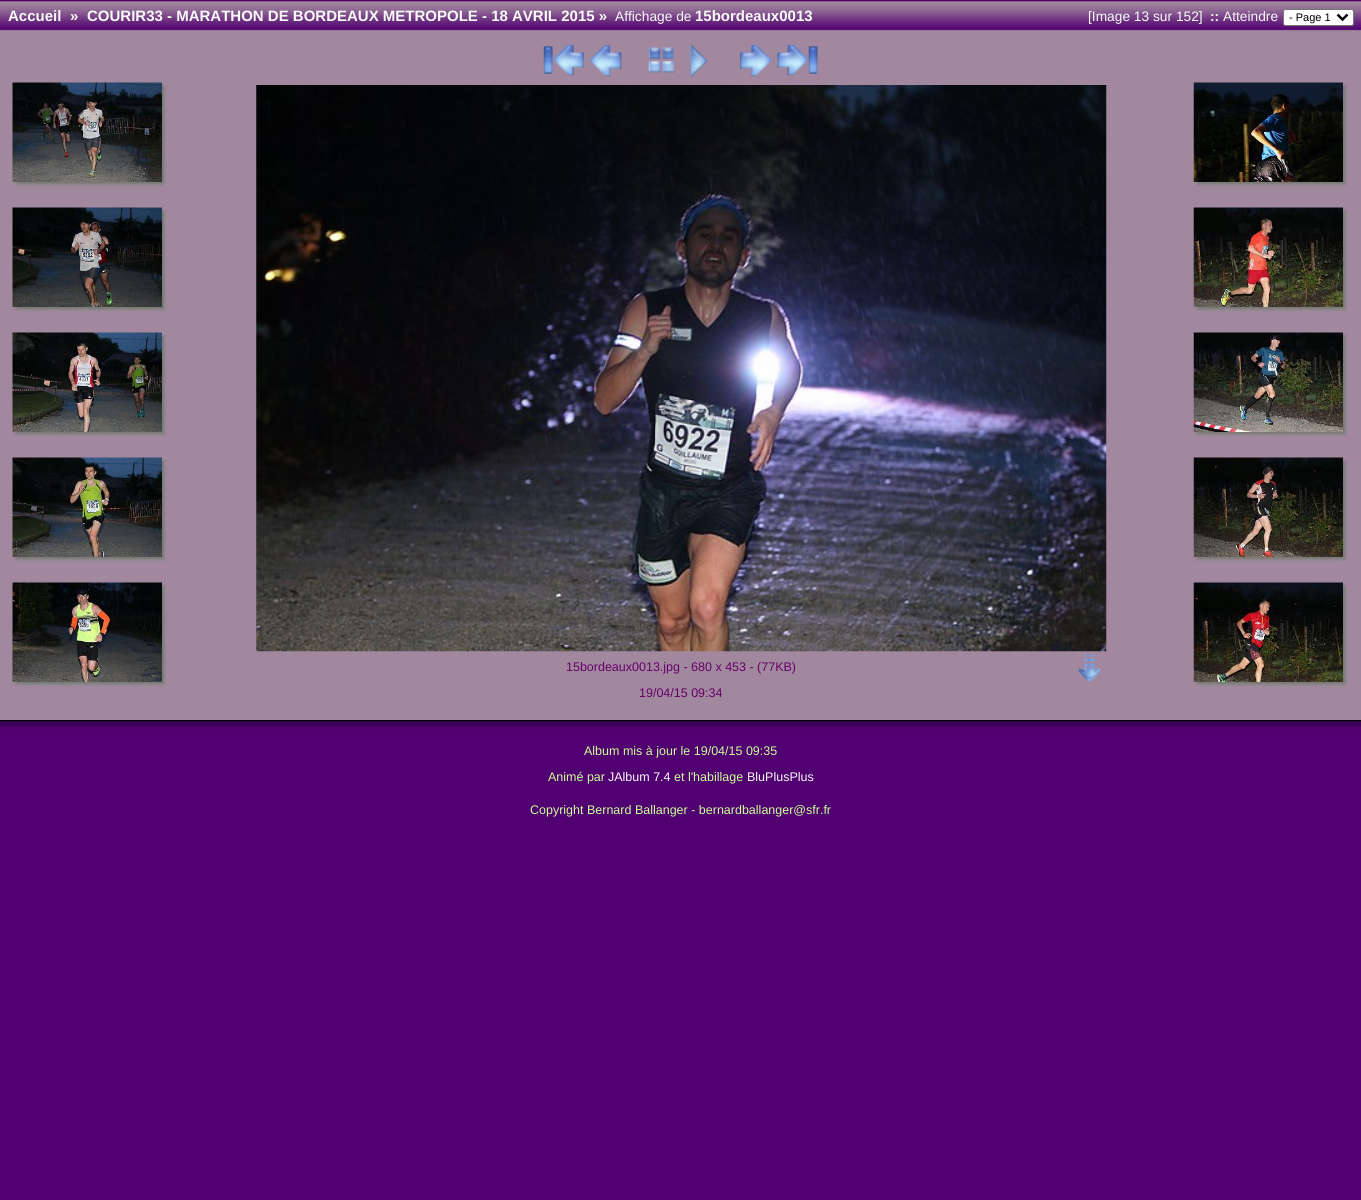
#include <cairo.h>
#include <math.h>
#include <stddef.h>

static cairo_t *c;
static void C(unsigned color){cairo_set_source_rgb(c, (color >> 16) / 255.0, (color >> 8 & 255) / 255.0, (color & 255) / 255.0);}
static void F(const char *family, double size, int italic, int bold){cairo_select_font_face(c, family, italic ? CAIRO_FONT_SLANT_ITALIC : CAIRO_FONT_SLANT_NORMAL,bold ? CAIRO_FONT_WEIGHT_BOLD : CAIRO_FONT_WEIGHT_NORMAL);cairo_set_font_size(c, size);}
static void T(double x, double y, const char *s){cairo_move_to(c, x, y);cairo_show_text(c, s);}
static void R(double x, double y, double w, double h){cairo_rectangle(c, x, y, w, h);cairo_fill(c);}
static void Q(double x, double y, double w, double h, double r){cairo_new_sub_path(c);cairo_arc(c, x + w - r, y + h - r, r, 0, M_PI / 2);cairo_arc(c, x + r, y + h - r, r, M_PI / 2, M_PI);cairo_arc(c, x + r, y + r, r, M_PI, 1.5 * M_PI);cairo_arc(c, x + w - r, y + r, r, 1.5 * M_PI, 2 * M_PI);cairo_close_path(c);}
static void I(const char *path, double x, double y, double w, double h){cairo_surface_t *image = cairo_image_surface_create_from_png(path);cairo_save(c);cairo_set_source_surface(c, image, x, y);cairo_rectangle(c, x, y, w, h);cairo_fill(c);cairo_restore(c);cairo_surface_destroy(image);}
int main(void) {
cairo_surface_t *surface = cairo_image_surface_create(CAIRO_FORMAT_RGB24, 1361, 1200);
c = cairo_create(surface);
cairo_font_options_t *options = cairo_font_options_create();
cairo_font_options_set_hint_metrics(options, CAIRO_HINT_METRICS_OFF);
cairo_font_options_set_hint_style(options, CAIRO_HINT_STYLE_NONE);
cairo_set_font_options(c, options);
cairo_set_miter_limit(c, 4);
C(0x500070);
cairo_paint(c);
I("1.png",0,0,1361,31);
F("Liberation Sans",15,0,1);
C(0xfafafa);
T(8,21,"Accueil");
T(70,21,"»");
T(87,21,"COURIR33 - MARATHON DE BORDEAUX METROPOLE - 18 AVRIL 2015 »");
F("Liberation Sans",13.75,0,0);
T(615,21,"Affichage de");
F("Liberation Sans",15,0,1);
T(695,21,"15bordeaux0013");
F("Liberation Sans",13.75,0,0);
T(1088,21,"[Image 13 sur 152]");
F("Liberation Sans",13.75,0,1);
T(1210,21,"::");
F("Liberation Sans",13.75,0,0);
T(1223,21,"Atteindre");
C(0xffffff);
Q(1283.5,9.5,70,16,2);
cairo_fill_preserve(c);
C(0x767676);
cairo_set_line_width(c,1);
cairo_stroke(c);
cairo_new_path(c);
cairo_move_to(c,1337.5,14.5);
cairo_line_to(c,1342.5,19.5);
cairo_line_to(c,1347.5,14.5);
C(0x000000);
cairo_set_line_width(c,2.5);
cairo_stroke(c);
F("Liberation Sans",11,0,0);
T(1289,21,"- Page 1");
C(0xa2889f);
R(0,31,1361,689);
I("2.png",543,44,41,32);
I("3.png",590,44,32,33);
I("4.png",648,47,26,26);
I("5.png",690,44,18,33);
I("6.png",739,44,33,33);
I("7.png",777,44,41,32);
I("8.png",12,82,155,105);
I("9.png",12,207,155,105);
I("10.png",12,332,155,105);
I("11.png",12,457,155,105);
I("12.png",12,582,155,105);
I("13.png",256,85,851,567);
F("Liberation Sans",12.5,0,0);
C(0x660066);
T(566,671,"15bordeaux0013.jpg - 680 x 453 - (77KB)");
I("14.png",1078,655,23,27);
T(639,697,"19/04/15 09:34");
I("15.png",1193,82,155,105);
I("16.png",1193,207,155,105);
I("17.png",1193,332,155,105);
I("18.png",1193,457,155,105);
I("19.png",1193,582,155,105);
C(0x000000);
R(0,720,1361,1);
C(0x280038);
R(0,721,1361,1);
C(0x320046);
R(0,723,1361,1);
C(0x3c0054);
R(0,724,1361,1);
C(0x44005f);
R(0,725,1361,1);
C(0x4a0067);
R(0,726,1361,1);
C(0x4e006d);
R(0,728,1361,1);
C(0xccff99);
T(584,755,"Album mis à jour le 19/04/15 09:35");
T(548,781,"Animé par");
C(0xfafafa);
T(608,781,"JAlbum 7.4");
C(0xccff99);
T(674,781,"et l'habillage");
C(0xfafafa);
T(747,781,"BluPlusPlus");
C(0xccff99);
T(530,814,"Copyright Bernard Ballanger - bernardballanger@sfr.fr");
cairo_surface_write_to_png(surface, "o.png");
cairo_font_options_destroy(options);
cairo_destroy(c);
cairo_surface_destroy(surface);
return 0;
}
